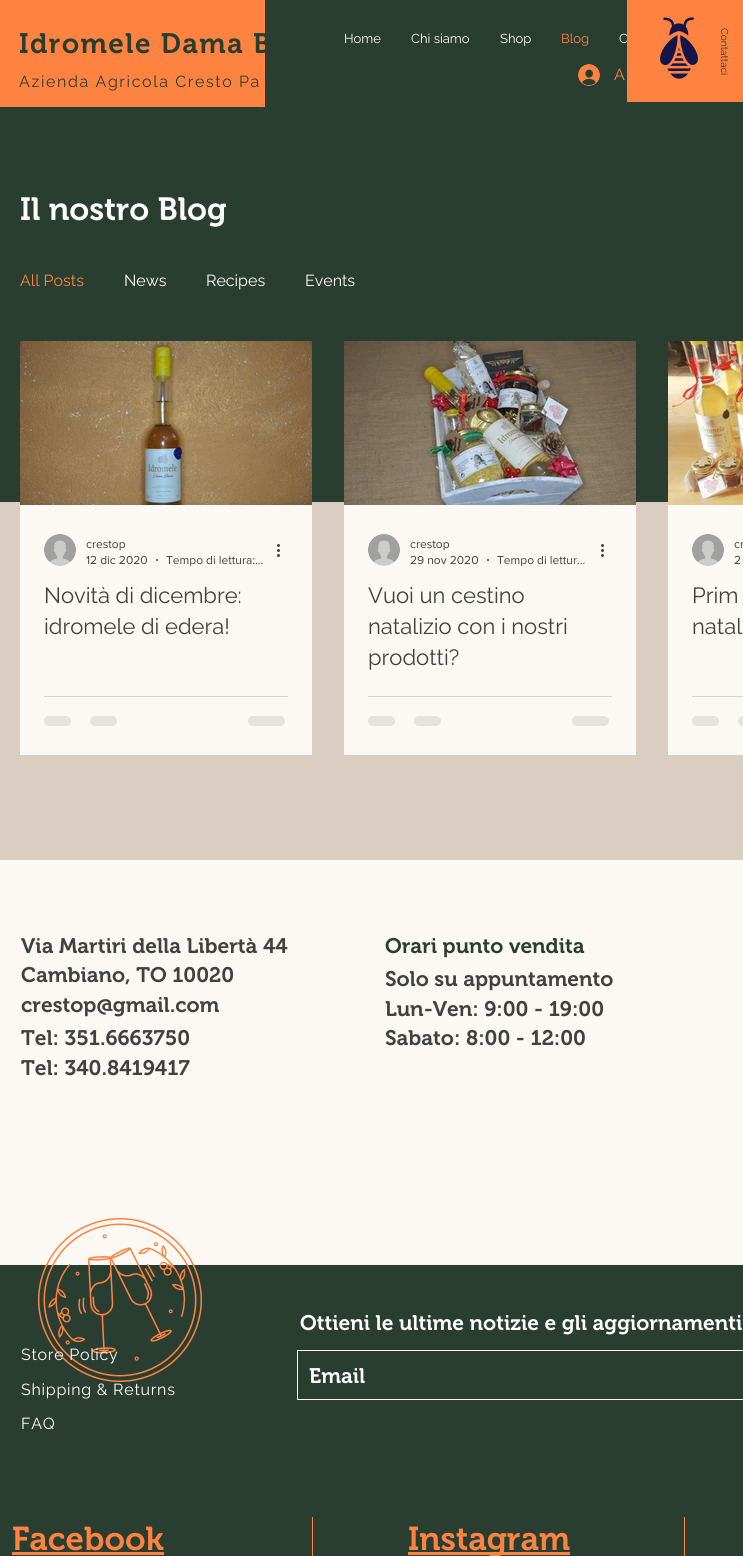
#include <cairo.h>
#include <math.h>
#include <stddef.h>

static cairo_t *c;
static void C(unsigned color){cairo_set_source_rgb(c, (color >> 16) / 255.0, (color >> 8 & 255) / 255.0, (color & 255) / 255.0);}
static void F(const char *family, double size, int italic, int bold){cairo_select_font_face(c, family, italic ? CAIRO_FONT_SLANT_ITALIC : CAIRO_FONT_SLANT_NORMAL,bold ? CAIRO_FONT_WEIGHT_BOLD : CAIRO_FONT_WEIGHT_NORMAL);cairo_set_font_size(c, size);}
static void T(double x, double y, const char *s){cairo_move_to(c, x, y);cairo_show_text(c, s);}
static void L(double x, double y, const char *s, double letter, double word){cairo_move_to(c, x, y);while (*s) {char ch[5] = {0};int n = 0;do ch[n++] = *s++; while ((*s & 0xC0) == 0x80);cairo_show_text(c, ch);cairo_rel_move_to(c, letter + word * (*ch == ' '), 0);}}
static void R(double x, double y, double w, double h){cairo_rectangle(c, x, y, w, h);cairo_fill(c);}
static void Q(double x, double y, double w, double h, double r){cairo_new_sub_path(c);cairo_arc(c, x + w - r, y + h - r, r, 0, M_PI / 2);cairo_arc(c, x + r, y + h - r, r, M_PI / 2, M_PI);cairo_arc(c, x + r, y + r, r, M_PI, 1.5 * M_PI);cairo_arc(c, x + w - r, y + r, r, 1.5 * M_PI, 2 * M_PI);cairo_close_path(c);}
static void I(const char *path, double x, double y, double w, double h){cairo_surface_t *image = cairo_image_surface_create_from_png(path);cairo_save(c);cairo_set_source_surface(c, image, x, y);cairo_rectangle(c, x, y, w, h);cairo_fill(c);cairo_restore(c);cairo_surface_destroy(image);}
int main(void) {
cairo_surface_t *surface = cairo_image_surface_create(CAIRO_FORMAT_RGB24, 743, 1556);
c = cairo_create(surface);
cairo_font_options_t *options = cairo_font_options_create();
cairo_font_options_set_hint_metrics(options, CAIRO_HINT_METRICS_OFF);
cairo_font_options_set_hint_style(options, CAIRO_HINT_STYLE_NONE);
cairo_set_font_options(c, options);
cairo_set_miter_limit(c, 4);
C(0xdacec2);
cairo_paint(c);
C(0x293e31);
R(265,0,478,107);
C(0xfe8340);
R(0,0,265,107);
F("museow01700 SemiBold",28,0,0);
C(0x293e31);
L(19,53,"Idromele Dama B",1.4,0);
F("Raleway",16,0,0);
L(19,87,"Azienda Agricola Cresto Pa",1.6,0);
F("Raleway",13,0,0);
C(0xfcf9f4);
T(344,43,"Home");
T(411,43,"Chi siamo");
T(500,43,"Shop");
C(0xfe8340);
T(561,43,"Blog");
C(0xfcf9f4);
T(619,43,"C");
I("1.png",578,64,22,22);
F("Raleway",16,0,0);
C(0xfe8340);
T(614,80,"A");
R(627,0,116,102);
I("2.png",660,17,38,62);
F("Raleway",10,0,0);
C(0x293e31);
cairo_save(c);
cairo_translate(c,721,28);
cairo_rotate(c,90 * M_PI / 180);
T(0,0,"Contattaci");
cairo_restore(c);
R(0,107,743,395);
F("museow01700 SemiBold",32,0,0);
C(0xffffff);
T(20,220,"Il nostro Blog");
F("Raleway",16,0,0);
C(0xfe8340);
T(20,286,"All Posts");
C(0xffffff);
T(124,286,"News");
T(206,286,"Recipes");
T(305,286,"Events");
I("3.png",20,341,292,164);
C(0xfcf9f4);
R(20,505,292,250);
I("4.png",44,534,32,32);
F("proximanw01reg",12,0,0);
C(0x414141);
T(86,548,"crestop");
T(86,564,"12 dic 2020");
cairo_new_path(c);
cairo_arc(c,157,560,1,0,2 * M_PI);
cairo_fill(c);
T(166,564,"Tempo di lettura:…");
I("5.png",277,544,3,13);
F("Raleway",22,0,0);
T(44,603,"Novità di dicembre:");
T(44,634,"idromele di edera!");
C(0xd7d4d0);
R(44,696,244,1);
C(0xe6e3df);
Q(44,716,27,10,5);
cairo_fill(c);
Q(90,716,27,10,5);
cairo_fill(c);
Q(248,716,37,10,5);
cairo_fill(c);
I("6.png",344,341,292,164);
C(0xfcf9f4);
R(344,505,292,250);
I("4.png",368,534,32,32);
F("proximanw01reg",12,0,0);
C(0x414141);
T(410,548,"crestop");
T(410,564,"29 nov 2020");
cairo_new_path(c);
cairo_arc(c,488,560,1,0,2 * M_PI);
cairo_fill(c);
cairo_save(c);
cairo_rectangle(c,497,553,93,13);
cairo_clip(c);
T(497,564,"Tempo di lettur…");
cairo_restore(c);
I("5.png",601,544,3,13);
F("Raleway",22,0,0);
T(368,603,"Vuoi un cestino");
T(368,634,"natalizio con i nostri");
T(368,665,"prodotti?");
C(0xd7d4d0);
R(368,696,244,1);
C(0xe6e3df);
Q(368,716,27,10,5);
cairo_fill(c);
Q(414,716,27,10,5);
cairo_fill(c);
Q(572,716,37,10,5);
cairo_fill(c);
I("7.png",668,341,75,164);
C(0xfcf9f4);
R(668,505,75,250);
I("4.png",692,534,32,32);
F("proximanw01reg",12,0,0);
C(0x414141);
T(734,548,"cr");
T(734,564,"2");
F("Raleway",22,0,0);
T(692,603,"Prim");
T(692,634,"natal");
C(0xd7d4d0);
R(692,696,51,1);
C(0xe6e3df);
Q(692,716,27,10,5);
cairo_fill(c);
cairo_arc(c,743,721,5,0,2 * M_PI);
cairo_fill(c);
C(0xfcf9f4);
R(0,860,743,405);
F("museow01700 SemiBold",21,0,0);
C(0x414141);
T(21,953,"Via Martiri della Libertà 44");
T(21,982,"Cambiano, TO 10020");
T(21,1012,"crestop@gmail.com");
C(0x293e31);
T(385,953,"Orari punto vendita");
C(0x414141);
T(385,986,"Solo su appuntamento");
T(385,1016,"Lun-Ven: 9:00 - 19:00");
T(385,1045,"Sabato: 8:00 - 12:00");
T(21,1045,"Tel: 351.6663750");
T(21,1075,"Tel: 340.8419417");
C(0x293e31);
R(0,1265,743,291);
I("8.png",37,1218,165,164);
C(0xffffff);
T(300,1330,"Ottieni le ultime notizie e gli aggiornamenti");
F("Raleway",16,0,0);
L(21,1360,"Store Policy",.75,0);
L(21,1395,"Shipping & Returns",.75,0);
L(21,1429,"FAQ",.75,0);
cairo_rectangle(c,297.5,1350.5,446,49);
C(0xfcf9f4);
cairo_set_line_width(c,1);
cairo_stroke(c);
F("museow01700 SemiBold",21,0,0);
C(0xffffff);
T(309,1383,"Email");
F("museow01700 SemiBold",33,0,0);
C(0xfe8340);
T(12,1550,"Facebook");
R(12,1552,152,3);
R(312,1517,1,39);
R(408,1552,162,3);
T(408,1550,"Instagram");
R(684,1517,1,39);
cairo_surface_write_to_png(surface, "o.png");
cairo_font_options_destroy(options);
cairo_destroy(c);
cairo_surface_destroy(surface);
return 0;
}
